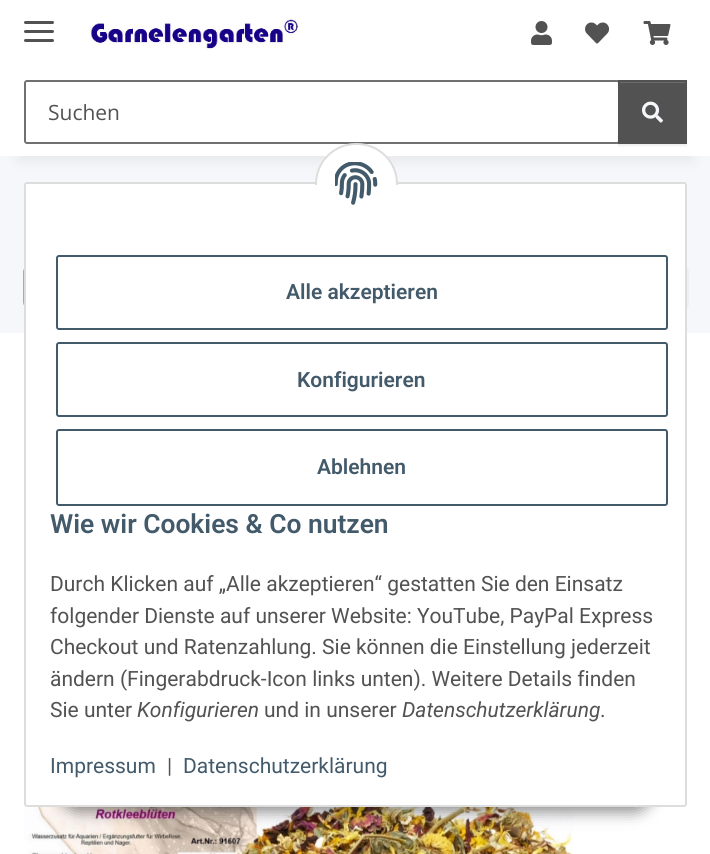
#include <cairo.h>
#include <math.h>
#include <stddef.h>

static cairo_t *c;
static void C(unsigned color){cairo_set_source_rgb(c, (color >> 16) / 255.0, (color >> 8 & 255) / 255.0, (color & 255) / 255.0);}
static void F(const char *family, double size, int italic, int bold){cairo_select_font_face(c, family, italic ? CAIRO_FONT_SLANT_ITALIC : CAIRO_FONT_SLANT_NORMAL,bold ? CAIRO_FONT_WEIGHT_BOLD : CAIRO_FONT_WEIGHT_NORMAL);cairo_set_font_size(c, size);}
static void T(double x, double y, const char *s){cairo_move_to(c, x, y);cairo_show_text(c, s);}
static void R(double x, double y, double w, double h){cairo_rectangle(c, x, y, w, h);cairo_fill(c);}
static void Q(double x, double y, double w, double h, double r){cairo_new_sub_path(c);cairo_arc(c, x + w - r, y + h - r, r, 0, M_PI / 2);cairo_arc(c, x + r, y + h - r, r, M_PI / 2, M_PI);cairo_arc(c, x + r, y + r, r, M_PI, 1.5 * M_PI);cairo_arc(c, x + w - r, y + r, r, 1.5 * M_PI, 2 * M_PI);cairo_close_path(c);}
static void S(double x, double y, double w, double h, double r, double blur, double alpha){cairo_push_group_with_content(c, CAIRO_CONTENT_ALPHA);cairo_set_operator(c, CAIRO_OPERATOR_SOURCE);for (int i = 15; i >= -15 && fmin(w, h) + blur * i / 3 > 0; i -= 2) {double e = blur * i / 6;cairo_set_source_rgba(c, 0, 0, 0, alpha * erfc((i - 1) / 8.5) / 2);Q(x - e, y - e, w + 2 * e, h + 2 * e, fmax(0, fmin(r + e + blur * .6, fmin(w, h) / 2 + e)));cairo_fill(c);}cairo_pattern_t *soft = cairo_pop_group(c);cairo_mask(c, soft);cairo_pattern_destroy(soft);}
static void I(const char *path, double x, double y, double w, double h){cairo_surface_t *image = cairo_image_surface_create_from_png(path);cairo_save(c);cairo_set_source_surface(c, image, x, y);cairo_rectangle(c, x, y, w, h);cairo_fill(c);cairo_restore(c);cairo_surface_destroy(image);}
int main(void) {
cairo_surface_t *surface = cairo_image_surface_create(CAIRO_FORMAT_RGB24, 710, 854);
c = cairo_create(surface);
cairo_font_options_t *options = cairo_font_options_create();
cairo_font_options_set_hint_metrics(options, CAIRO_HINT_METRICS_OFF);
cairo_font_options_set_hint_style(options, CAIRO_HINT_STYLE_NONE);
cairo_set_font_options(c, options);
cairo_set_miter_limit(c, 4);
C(0xf5f7fa);
cairo_paint(c);
C(0x000000);
S(18,42,675,120,0,7,.06);
C(0xffffff);
R(0,0,710,156);
C(0x525252);
Q(24,30,30,3,1.5);
cairo_fill(c);
Q(24,21,30,3,1.5);
cairo_fill(c);
Q(24,39,30,3,1.5);
cairo_fill(c);
I("1.png",87,19,212,32);
I("2.png",531,21,21,24);
I("3.png",585,22,24,22);
I("4.png",643,21,28,24);
Q(25,81,594,62,2);
C(0x707070);
cairo_stroke(c);
F("Open Sans",21,0,0);
C(0x525252);
T(48,120,"Suchen");
C(0x000000);
S(618,81,69,65,0,1,.07);
C(0x525252);
R(620,83,65,59);
C(0x6c6c6c);
R(620,82,66,1);
cairo_rectangle(c,619,81,67,62);
C(0x525252);
cairo_stroke(c);
I("5.png",642,101,21,22);
Q(24,267,589,40,5);
C(0xaaaaaa);
cairo_stroke(c);
C(0xefefef);
Q(636,264,53,47,8);
cairo_fill(c);
C(0xffffff);
R(0,333,710,521);
I("7.png",24,804,549,50);
C(0x000000);
S(59,764,594,48,24,7.5,.45);
C(0xffffff);
Q(25,183,661,623,2);
cairo_fill_preserve(c);
C(0xdddddd);
cairo_stroke(c);
C(0xffffff);
Q(316,144,81,80,40);
cairo_fill_preserve(c);
C(0xdddddd);
cairo_stroke(c);
C(0xffffff);
R(315,185,83,40);
I("6.png",335,162,43,43);
Q(57,256,610,73,2);
C(0x435a6b);
cairo_stroke(c);
F("Roboto SemiBold",21,0,0);
T(286,299,"Alle akzeptieren");
Q(57,343,610,73,2);
cairo_stroke(c);
T(297,387,"Konfigurieren");
Q(57,430,610,75,2);
cairo_stroke(c);
T(317,474,"Ablehnen");
F("Roboto SemiBold",26.4,0,0);
T(50,533,"Wie wir Cookies & Co nutzen");
F("Roboto",21,0,0);
C(0x525252);
T(50,591,"Durch Klicken auf „Alle akzeptieren“ gestatten Sie den Einsatz");
T(50,623,"folgender Dienste auf unserer Website: YouTube, PayPal Express");
T(50,654,"Checkout und Ratenzahlung. Sie können die Einstellung jederzeit");
T(50,686,"ändern (Fingerabdruck-Icon links unten). Weitere Details finden");
T(50,717,"Sie unter");
F("Roboto",21,1,0);
T(137,717,"Konfigurieren");
F("Roboto",21,0,0);
T(264,717,"und in unserer");
F("Roboto",21,1,0);
T(402,717,"Datenschutzerklärung");
F("Roboto",21,0,0);
T(600,717,".");
C(0x435a6b);
T(50,773,"Impressum");
C(0x525252);
T(167,773,"|");
C(0x435a6b);
T(183,773,"Datenschutzerklärung");
cairo_surface_write_to_png(surface, "o.png");
cairo_font_options_destroy(options);
cairo_destroy(c);
cairo_surface_destroy(surface);
return 0;
}
